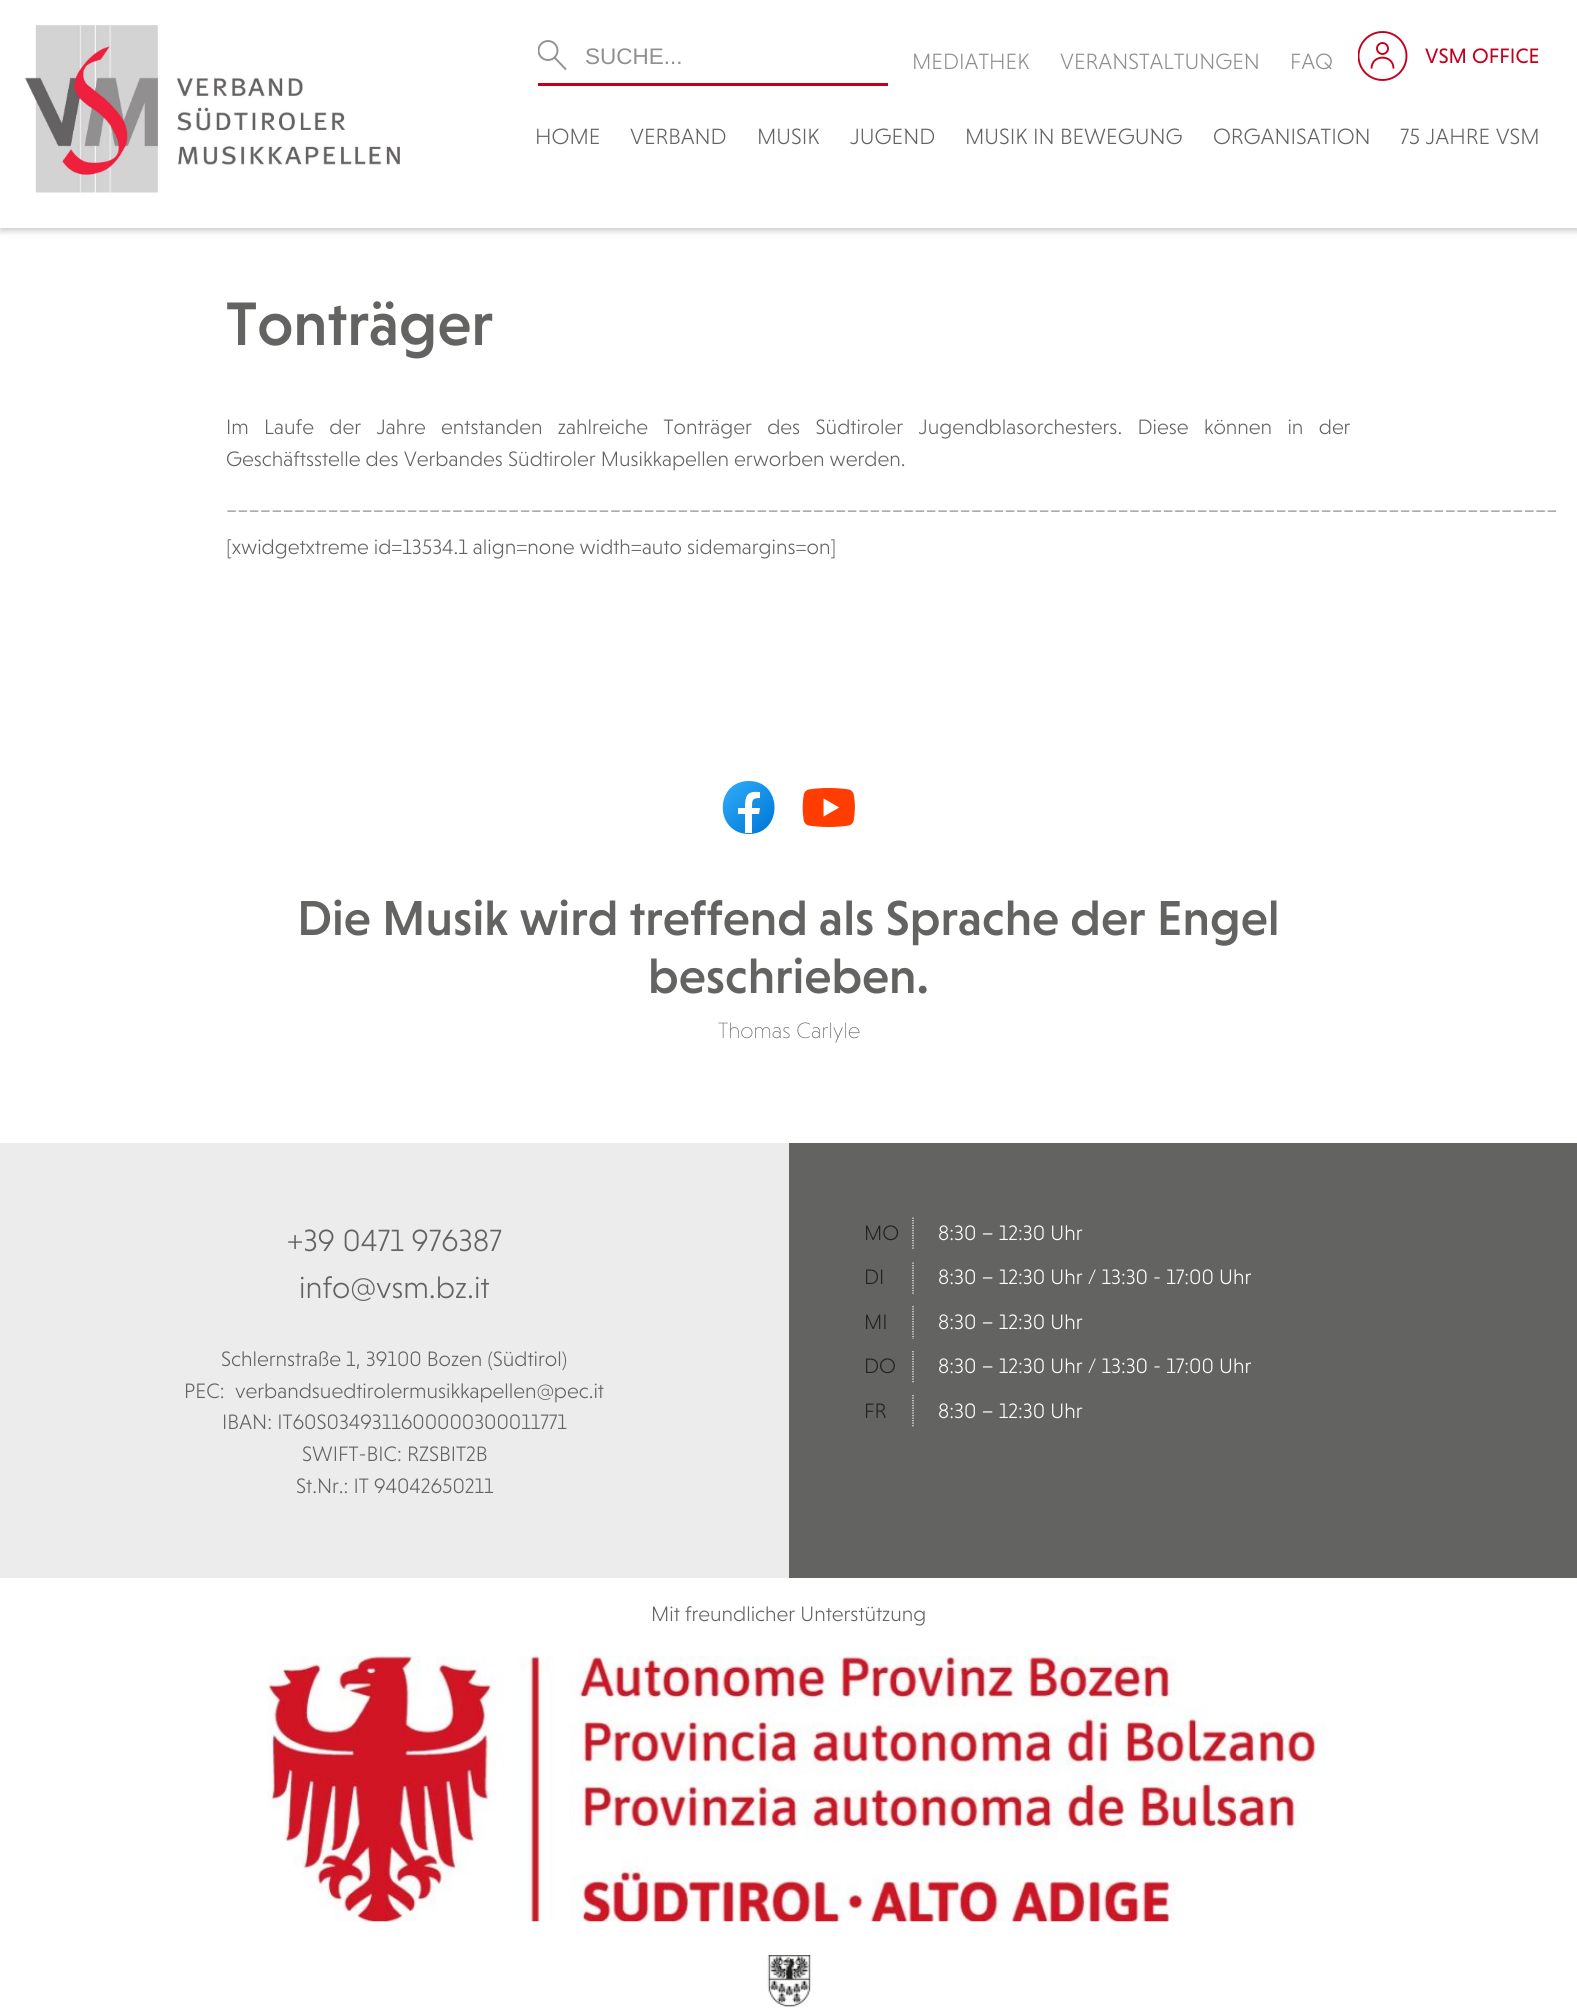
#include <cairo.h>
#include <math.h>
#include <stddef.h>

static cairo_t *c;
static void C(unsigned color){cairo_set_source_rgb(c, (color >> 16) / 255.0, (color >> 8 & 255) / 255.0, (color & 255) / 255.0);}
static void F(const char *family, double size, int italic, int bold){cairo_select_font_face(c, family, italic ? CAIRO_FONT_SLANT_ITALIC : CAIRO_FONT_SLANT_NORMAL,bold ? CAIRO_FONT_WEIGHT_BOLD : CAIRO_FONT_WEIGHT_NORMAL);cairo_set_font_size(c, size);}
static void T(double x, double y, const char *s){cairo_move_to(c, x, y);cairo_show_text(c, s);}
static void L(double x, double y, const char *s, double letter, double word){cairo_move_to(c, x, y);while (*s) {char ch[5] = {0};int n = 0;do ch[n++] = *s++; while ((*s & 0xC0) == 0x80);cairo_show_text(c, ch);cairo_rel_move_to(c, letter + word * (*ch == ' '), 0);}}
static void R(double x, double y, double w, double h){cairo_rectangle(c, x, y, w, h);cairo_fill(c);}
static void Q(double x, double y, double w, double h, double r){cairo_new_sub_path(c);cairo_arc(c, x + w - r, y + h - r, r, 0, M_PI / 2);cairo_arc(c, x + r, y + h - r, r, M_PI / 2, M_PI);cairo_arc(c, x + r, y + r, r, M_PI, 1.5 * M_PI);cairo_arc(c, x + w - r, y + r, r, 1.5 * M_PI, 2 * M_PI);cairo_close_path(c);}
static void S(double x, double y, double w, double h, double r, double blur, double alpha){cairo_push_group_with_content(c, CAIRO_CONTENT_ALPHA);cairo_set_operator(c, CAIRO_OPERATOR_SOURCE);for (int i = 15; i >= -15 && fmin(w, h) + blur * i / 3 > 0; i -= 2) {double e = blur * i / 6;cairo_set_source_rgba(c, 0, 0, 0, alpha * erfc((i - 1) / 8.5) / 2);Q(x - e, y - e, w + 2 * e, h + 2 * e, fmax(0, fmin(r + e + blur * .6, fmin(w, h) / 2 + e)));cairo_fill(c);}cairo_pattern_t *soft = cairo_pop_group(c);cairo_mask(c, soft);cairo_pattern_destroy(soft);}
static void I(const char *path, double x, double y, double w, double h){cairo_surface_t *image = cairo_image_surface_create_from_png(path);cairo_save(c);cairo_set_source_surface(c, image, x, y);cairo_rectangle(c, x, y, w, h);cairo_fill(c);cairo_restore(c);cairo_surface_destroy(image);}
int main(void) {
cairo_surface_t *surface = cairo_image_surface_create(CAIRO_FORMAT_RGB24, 1577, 2010);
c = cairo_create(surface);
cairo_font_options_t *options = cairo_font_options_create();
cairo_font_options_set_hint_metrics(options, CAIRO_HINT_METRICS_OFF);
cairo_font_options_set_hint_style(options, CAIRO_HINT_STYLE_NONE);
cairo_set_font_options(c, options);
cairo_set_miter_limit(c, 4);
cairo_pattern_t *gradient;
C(0xffffff);
cairo_paint(c);
C(0x000000);
S(0,4,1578,227,0,3,.2);
C(0xffffff);
R(0,0,1577,228);
I("1.png",25,25,375,168);
C(0xc2001d);
R(538,83,350,3);
cairo_save(c);
cairo_rectangle(c,538,40,30,30);
cairo_clip(c);
cairo_arc(c,548,50.5,9.5,0,2 * M_PI);
C(0x909090);
cairo_set_line_width(c,1.9);
cairo_stroke(c);
cairo_restore(c);
cairo_new_path(c);
cairo_move_to(c,554.5,57.5);
cairo_line_to(c,565.5,69);
C(0x909090);
cairo_set_line_width(c,1.9);
cairo_set_line_cap(c,CAIRO_LINE_CAP_ROUND);
cairo_stroke(c);
F("Liberation Sans",22.5,0,0);
T(585,64,"SUCHE...");
F("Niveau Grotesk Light",22.5,0,0);
T(912,69,"MEDIATHEK");
T(1060,69,"VERANSTALTUNGEN");
T(1290,69,"FAQ");
cairo_save(c);
cairo_rectangle(c,1358,31,50,50);
cairo_clip(c);
cairo_arc(c,1382.5,56,24,0,2 * M_PI);
C(0xc2001d);
cairo_set_line_cap(c,CAIRO_LINE_CAP_BUTT);
cairo_stroke(c);
cairo_restore(c);
cairo_arc(c,1382.5,48.5,5.5,0,2 * M_PI);
C(0xc2001d);
cairo_set_line_cap(c,CAIRO_LINE_CAP_BUTT);
cairo_stroke(c);
cairo_new_path(c);
cairo_move_to(c,1371.5,68.5);
cairo_curve_to(c,1371.5,54,1393.5,54,1393.5,68.5);
cairo_stroke(c);
F("Niveau Grotesk",21.25,0,0);
T(1425,63,"VSM OFFICE");
F("Niveau Grotesk Light",22.5,0,0);
C(0x636362);
T(535,144,"HOME");
T(630,144,"VERBAND");
T(757,144,"MUSIK");
T(850,144,"JUGEND");
T(965,144,"MUSIK IN BEWEGUNG");
T(1213,144,"ORGANISATION");
T(1400,144,"75 JAHRE VSM");
F("Niveau Grotesk Medium",62.5,0,0);
T(226,345,"Tonträger");
F("Niveau Grotesk Light",21.25,0,0);
L(226,434,"Im Laufe der Jahre entstanden zahlreiche Tonträger des Südtiroler Jugendblasorchesters. Diese können in der",0,10.25);
T(226,466,"Geschäftsstelle des Verbandes Südtiroler Musikkapellen erworben werden.");
T(226,510,"______________________________________________________________________________________________________________________");
T(226,554,"[xwidgetxtreme id=13534.1 align=none width=auto sidemargins=on]");
gradient = cairo_pattern_create_linear(731,789,770,829);
cairo_pattern_add_color_stop_rgba(gradient,0,0.165,0.643,0.957,1);
cairo_pattern_add_color_stop_rgba(gradient,1,0,0.478,0.851,1);
cairo_set_source(c,gradient);
cairo_pattern_destroy(gradient);
cairo_new_path(c);
cairo_move_to(c,749,781);
cairo_curve_to(c,714,781,714,834,749,834);
cairo_curve_to(c,783,834,783,781,749,781);
cairo_close_path(c);
cairo_fill(c);
C(0xffffff);
cairo_new_path(c);
cairo_move_to(c,752,814);
cairo_line_to(c,759,814);
cairo_line_to(c,760,808);
cairo_line_to(c,752,808);
cairo_curve_to(c,752,800,752,798,760,798);
cairo_line_to(c,760,792);
cairo_curve_to(c,747,791,745,795,745,808);
cairo_line_to(c,738,808);
cairo_line_to(c,738,814);
cairo_line_to(c,745,814);
cairo_line_to(c,745,833);
cairo_line_to(c,752,833);
cairo_close_path(c);
cairo_fill(c);
I("2.png",802,788,53,39);
F("Niveau Grotesk Medium",50,0,0);
C(0x636362);
T(297,935,"Die Musik wird treffend als Sprache der Engel");
T(648,993,"beschrieben.");
F("Niveau Grotesk ExtraLight",22.5,0,0);
T(718,1038,"Thomas Carlyle");
C(0xececec);
R(0,1143,789,435);
F("Niveau Grotesk Light",31.25,0,0);
C(0x636362);
T(287,1251,"+39 0471 976387");
T(299,1298,"info@vsm.bz.it");
F("Niveau Grotesk Light",21.25,0,0);
T(221,1366,"Schlernstraße 1, 39100 Bozen (Südtirol)");
T(184,1398,"PEC:");
T(235,1398,"verbandsuedtirolermusikkapellen@pec.it");
T(222,1429,"IBAN: IT60S0349311600000300011771");
T(302,1461,"SWIFT-BIC: RZSBIT2B");
T(296,1493,"St.Nr.: IT 94042650211");
R(789,1143,788,435);
cairo_new_path(c);
cairo_move_to(c,913,1217.5);
cairo_line_to(c,913,1250);
C(0xffffff);
cairo_set_line_width(c,1.2);
cairo_set_dash(c,(double[]){1.25,1.25},2,0);
cairo_stroke(c);
C(0x222222);
T(864,1240,"MO");
C(0xffffff);
T(938,1240,"8:30 – 12:30 Uhr");
cairo_new_path(c);
cairo_move_to(c,913,1262.5);
cairo_line_to(c,913,1294);
cairo_stroke(c);
C(0x222222);
T(864,1284,"DI");
C(0xffffff);
T(938,1284,"8:30 – 12:30 Uhr / 13:30 - 17:00 Uhr");
cairo_new_path(c);
cairo_move_to(c,913,1306);
cairo_line_to(c,913,1339);
cairo_stroke(c);
C(0x222222);
T(864,1329,"MI");
C(0xffffff);
T(938,1329,"8:30 – 12:30 Uhr");
cairo_new_path(c);
cairo_move_to(c,913,1351);
cairo_line_to(c,913,1382.5);
cairo_stroke(c);
C(0x222222);
T(864,1373,"DO");
C(0xffffff);
T(938,1373,"8:30 – 12:30 Uhr / 13:30 - 17:00 Uhr");
cairo_new_path(c);
cairo_move_to(c,913,1395);
cairo_line_to(c,913,1427.5);
cairo_stroke(c);
C(0x222222);
T(864,1418,"FR");
C(0xffffff);
T(938,1418,"8:30 – 12:30 Uhr");
C(0x636362);
T(651,1621,"Mit freundlicher Unterstützung");
I("3.png",267,1656,1059,266);
I("4.png",767,1955,45,52);
cairo_surface_write_to_png(surface, "o.png");
cairo_font_options_destroy(options);
cairo_destroy(c);
cairo_surface_destroy(surface);
return 0;
}
